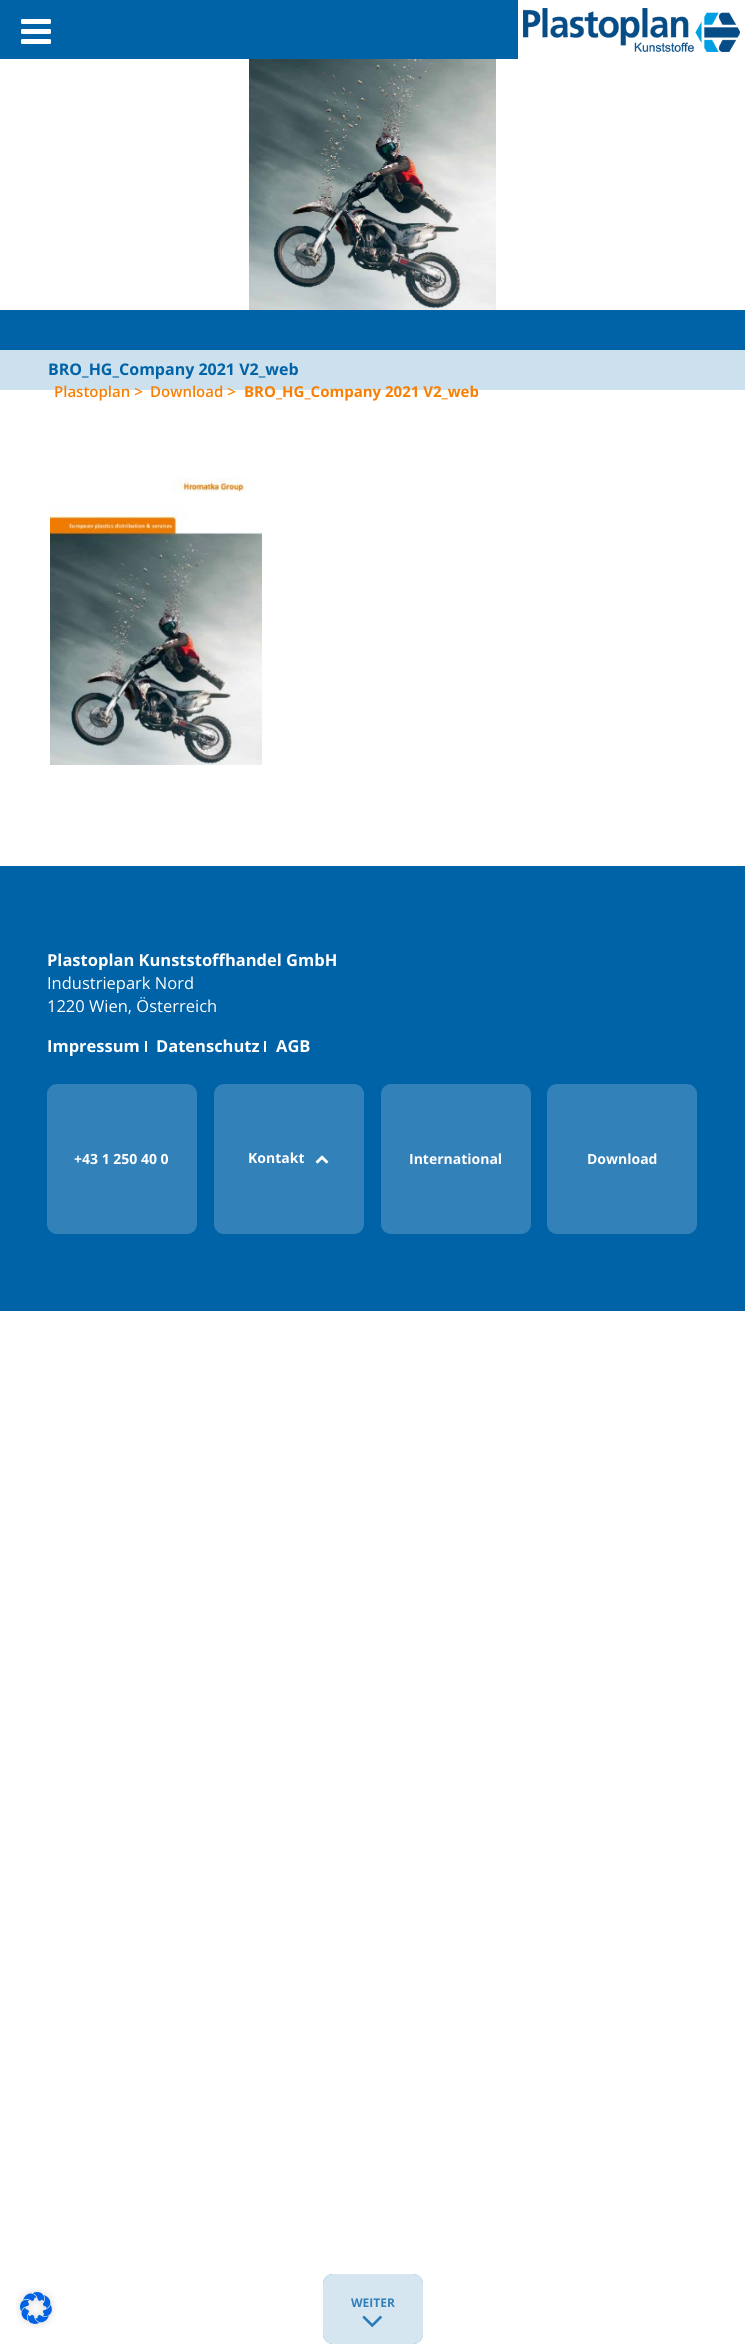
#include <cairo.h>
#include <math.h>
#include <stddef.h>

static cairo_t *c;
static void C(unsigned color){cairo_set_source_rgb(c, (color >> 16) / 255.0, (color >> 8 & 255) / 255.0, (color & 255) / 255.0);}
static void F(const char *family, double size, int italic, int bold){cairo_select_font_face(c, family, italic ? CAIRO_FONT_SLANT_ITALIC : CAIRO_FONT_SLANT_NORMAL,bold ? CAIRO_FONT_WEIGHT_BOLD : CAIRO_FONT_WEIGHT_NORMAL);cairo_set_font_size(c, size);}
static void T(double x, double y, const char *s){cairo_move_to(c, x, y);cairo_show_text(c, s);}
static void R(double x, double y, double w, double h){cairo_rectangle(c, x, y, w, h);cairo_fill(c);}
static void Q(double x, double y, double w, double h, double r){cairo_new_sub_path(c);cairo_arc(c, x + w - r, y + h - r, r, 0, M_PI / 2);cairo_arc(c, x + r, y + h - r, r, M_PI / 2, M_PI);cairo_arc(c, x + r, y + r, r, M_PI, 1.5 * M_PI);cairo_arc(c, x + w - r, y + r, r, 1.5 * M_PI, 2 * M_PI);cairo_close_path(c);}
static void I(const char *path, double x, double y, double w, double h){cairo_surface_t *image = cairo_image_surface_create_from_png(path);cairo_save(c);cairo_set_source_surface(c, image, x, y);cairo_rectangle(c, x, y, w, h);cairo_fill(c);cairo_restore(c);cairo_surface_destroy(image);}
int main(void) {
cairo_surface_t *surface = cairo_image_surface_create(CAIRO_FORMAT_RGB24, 745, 2344);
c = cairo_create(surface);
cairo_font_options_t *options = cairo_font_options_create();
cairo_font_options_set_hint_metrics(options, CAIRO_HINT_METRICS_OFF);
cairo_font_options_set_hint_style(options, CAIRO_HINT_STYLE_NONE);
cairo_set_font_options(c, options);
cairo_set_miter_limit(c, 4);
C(0xffffff);
cairo_paint(c);
C(0x0062a7);
R(0,0,518,59);
I("1.png",21,19,30,25);
I("2.png",523,8,217,44);
I("3.png",249,59,247,251);
R(0,310,745,40);
C(0xcce0ed);
R(0,350,745,40);
F("Open Sans",16,0,1);
C(0x0062a7);
T(48,375,"BRO_HG_Company 2021 V2_web");
F("Open Sans SemiBold",15,0,0);
C(0xf97f02);
T(54,397,"Plastoplan >");
T(150,397,"Download >");
F("Open Sans",15,0,1);
T(244,397,"BRO_HG_Company 2021 V2_web");
I("4.png",50,478,212,287);
I("5.png",16,2288,40,40);
C(0x0062a7);
R(0,866,745,445);
F("Open Sans",16.5,0,1);
C(0xffffff);
T(47,966,"Plastoplan Kunststoffhandel GmbH");
F("Open Sans",16.5,0,0);
T(47,989,"Industriepark Nord");
T(47,1012,"1220 Wien, Österreich");
F("Open Sans",16.5,0,1);
T(47,1052,"Impressum");
R(145,1041,2,11);
T(156,1052,"Datenschutz");
R(264,1041,2,11);
T(276,1052,"AGB");
C(0x3381b9);
Q(47,1084,150,150,10);
cairo_fill(c);
F("Open Sans",14,0,1);
C(0xffffff);
T(74,1164,"+43 1 250 40 0");
C(0x3381b9);
Q(214,1084,150,150,10);
cairo_fill(c);
C(0xffffff);
T(248,1163,"Kontakt");
I("6.png",315,1155,14,9);
C(0x3381b9);
Q(381,1084,150,150,10);
cairo_fill(c);
C(0xffffff);
T(409,1164,"International");
C(0x3381b9);
Q(547,1084,150,150,10);
cairo_fill(c);
C(0xffffff);
T(587,1164,"Download");
C(0x3381b9);
Q(323,2274,100,70,10);
cairo_fill(c);
cairo_set_source_rgba(c,1,1,1,0.8);
Q(323,2274,100,70,10);
cairo_fill(c);
F("Open Sans",12,0,1);
C(0x3381b9);
T(351,2307,"WEITER");
I("7.png",362,2315,20,13);
cairo_surface_write_to_png(surface, "o.png");
cairo_font_options_destroy(options);
cairo_destroy(c);
cairo_surface_destroy(surface);
return 0;
}
